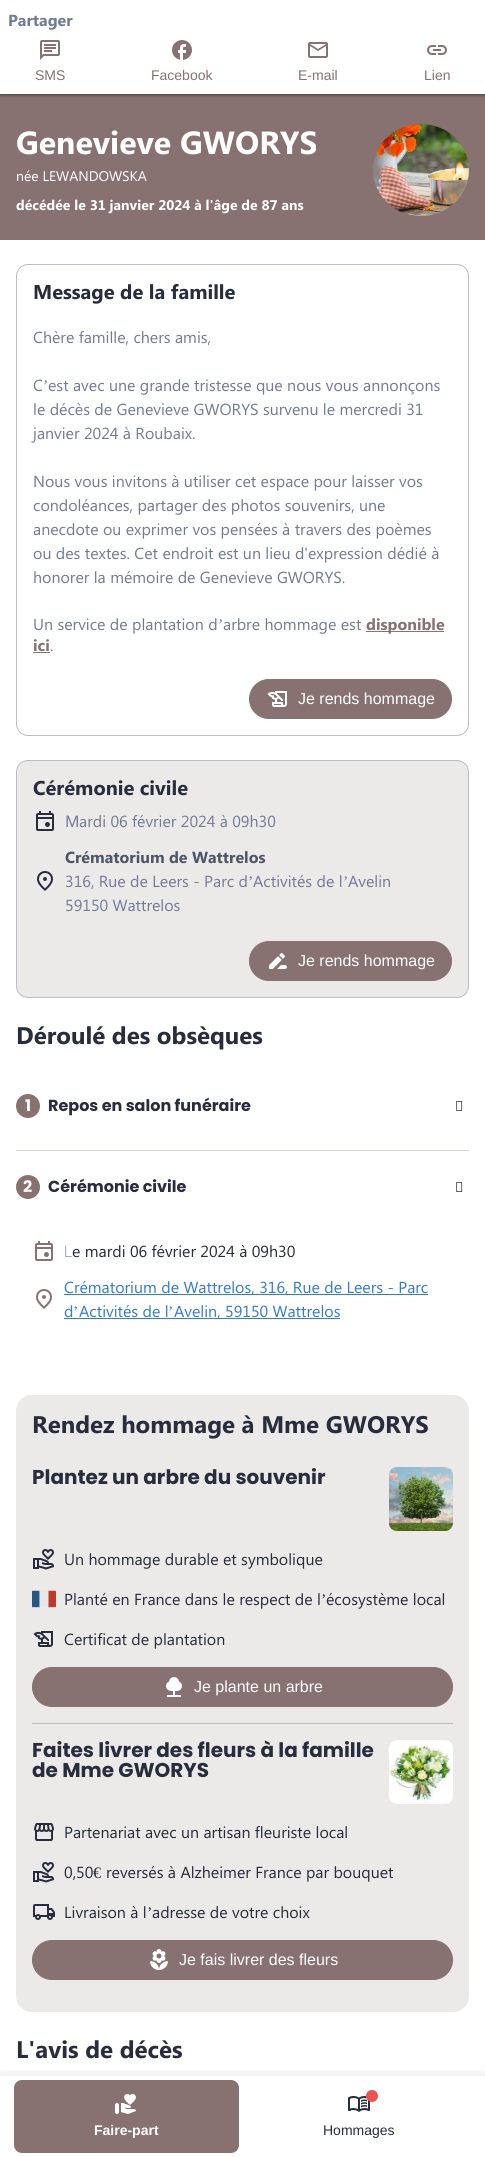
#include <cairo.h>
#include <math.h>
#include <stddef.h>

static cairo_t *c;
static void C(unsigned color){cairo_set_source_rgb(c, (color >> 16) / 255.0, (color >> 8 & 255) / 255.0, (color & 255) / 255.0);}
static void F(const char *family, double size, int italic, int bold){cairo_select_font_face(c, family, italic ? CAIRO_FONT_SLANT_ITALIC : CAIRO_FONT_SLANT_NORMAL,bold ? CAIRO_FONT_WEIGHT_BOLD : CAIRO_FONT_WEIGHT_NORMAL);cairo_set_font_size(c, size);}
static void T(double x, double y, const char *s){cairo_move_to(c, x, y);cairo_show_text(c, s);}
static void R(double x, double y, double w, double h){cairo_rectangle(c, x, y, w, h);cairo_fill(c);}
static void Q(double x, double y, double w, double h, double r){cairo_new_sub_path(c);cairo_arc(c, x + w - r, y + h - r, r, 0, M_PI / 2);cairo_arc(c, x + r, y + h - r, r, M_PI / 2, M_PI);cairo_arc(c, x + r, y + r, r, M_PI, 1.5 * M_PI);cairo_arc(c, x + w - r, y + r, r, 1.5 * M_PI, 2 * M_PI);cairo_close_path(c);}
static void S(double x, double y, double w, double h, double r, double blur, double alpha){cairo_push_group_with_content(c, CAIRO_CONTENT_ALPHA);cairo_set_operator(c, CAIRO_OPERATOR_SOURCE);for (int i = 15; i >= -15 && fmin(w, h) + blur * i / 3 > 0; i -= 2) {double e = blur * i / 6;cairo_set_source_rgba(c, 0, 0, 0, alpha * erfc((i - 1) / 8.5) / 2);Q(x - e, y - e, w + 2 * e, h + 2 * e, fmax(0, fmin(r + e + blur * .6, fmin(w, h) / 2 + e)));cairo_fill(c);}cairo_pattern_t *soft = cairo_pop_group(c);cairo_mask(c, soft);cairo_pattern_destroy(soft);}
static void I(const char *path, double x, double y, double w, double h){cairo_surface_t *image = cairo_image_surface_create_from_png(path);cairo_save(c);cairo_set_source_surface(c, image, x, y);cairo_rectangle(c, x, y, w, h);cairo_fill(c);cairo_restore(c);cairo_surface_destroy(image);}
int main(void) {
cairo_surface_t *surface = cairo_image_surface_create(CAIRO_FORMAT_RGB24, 485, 2157);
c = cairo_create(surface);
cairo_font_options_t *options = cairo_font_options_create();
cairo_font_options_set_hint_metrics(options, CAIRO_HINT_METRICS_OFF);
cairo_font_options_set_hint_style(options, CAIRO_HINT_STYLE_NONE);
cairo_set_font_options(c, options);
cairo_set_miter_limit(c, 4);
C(0xffffff);
cairo_paint(c);
C(0x877171);
R(0,94,485,146);
C(0x000000);
S(-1,0,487,96,0,1.5,.15);
S(0,1,485,94,0,1,.3);
C(0xffffff);
R(0,0,485,94);
F("Segoe UI",16,0,1);
C(0x717b98);
T(8,26,"Partager");
I("1.png",40,40,20,20);
F("Liberation Sans",14,0,0);
C(0x877171);
T(35,80,"SMS");
I("2.png",172,40,20,20);
T(151,80,"Facebook");
I("3.png",308,42,20,16);
T(298,80,"E-mail");
I("4.png",427,45,20,10);
T(424,80,"Lien");
F("Segoe UI",32,0,1);
C(0xffffff);
T(16,154,"Genevieve GWORYS");
F("Segoe UI",14,0,0);
T(16,181,"née LEWANDOWSKA");
F("Segoe UI",14,0,1);
T(16,210,"décédée le 31 janvier 2024 à l'âge de 87 ans");
I("5.png",373,124,96,92);
Q(16.5,264.5,452,471,11.5);
C(0xb9bdcb);
cairo_set_line_width(c,1);
cairo_stroke(c);
F("Segoe UI",20,0,1);
C(0x282d3e);
T(33,299,"Message de la famille");
F("Segoe UI",16,0,0);
C(0x717b98);
T(33,343,"Chère famille, chers amis,");
T(33,391,"C");
F("Liberation Serif",16,0,0);
T(43,391,"’");
F("Segoe UI",16,0,0);
T(48,391,"est avec une grande tristesse que nous vous annonçons");
T(33,415,"le décès de Genevieve GWORYS survenu le mercredi 31");
T(33,439,"janvier 2024 à Roubaix.");
T(33,487,"Nous vous invitons à utiliser cet espace pour laisser vos");
T(33,511,"condoléances, partager des photos souvenirs, une");
T(33,535,"anecdote ou exprimer vos pensées à travers des poèmes");
T(33,559,"ou des textes. Cet endroit est un lieu d'expression dédié à");
T(33,583,"honorer la mémoire de Genevieve GWORYS.");
T(33,630,"Un service de plantation d");
F("Liberation Serif",16,0,0);
T(218,630,"’");
F("Segoe UI",16,0,0);
T(223,630,"arbre hommage est");
C(0x877171);
R(366,631,78,1);
F("Segoe UI",16,0,1);
T(366,630,"disponible");
T(33,651,"ici");
R(33,652,17,1);
F("Segoe UI",16,0,0);
C(0x717b98);
T(50,651,".");
C(0x877171);
Q(249.5,679.5,202,39,19.5);
cairo_fill_preserve(c);
cairo_stroke(c);
I("6.png",267,691,20,16);
F("Liberation Sans",16,0,0);
C(0xffffff);
T(298,704,"Je rends hommage");
C(0xece9e9);
Q(16.5,760.5,452,237,11.5);
cairo_fill_preserve(c);
C(0xb9bdcb);
cairo_stroke(c);
F("Segoe UI",20,0,1);
C(0x282d3e);
T(33,795,"Cérémonie civile");
I("7.png",36,811,18,20);
F("Noto Sans",16,0,0);
C(0x717b98);
T(65,827,"M");
F("Segoe UI",16,0,0);
T(79,827,"ardi 06 février 2024 à 09h30");
I("8.png",37,871,16,20);
F("Segoe UI",16,0,1);
C(0x4e5568);
T(65,863,"Crématorium de Wattrelos");
F("Segoe UI",16,0,0);
C(0x717b98);
T(65,887,"316, Rue de Leers - Parc d");
F("Liberation Serif",16,0,0);
T(248,887,"’");
F("Segoe UI",16,0,0);
T(253,887,"Activités de l");
F("Liberation Serif",16,0,0);
T(343,887,"’");
F("Segoe UI",16,0,0);
T(348,887,"Avelin");
T(65,911,"59150 Wattrelos");
C(0x877171);
Q(249.5,941.5,202,39,19.5);
cairo_fill_preserve(c);
cairo_stroke(c);
I("9.png",269,953,18,16);
F("Liberation Sans",16,0,0);
C(0xffffff);
T(298,966,"Je rends hommage");
F("Segoe UI",24,0,1);
C(0x282d3e);
T(16,1044,"Déroulé des obsèques");
C(0x877171);
cairo_new_path(c);
cairo_arc(c,28,1106,12,0,2 * M_PI);
cairo_fill(c);
F("Poppins",16,0,1);
C(0xffffff);
T(25,1111,"1");
C(0x282d3e);
T(48,1111,"Repos en salon funéraire");
I("10.png",456,1101,7,10);
C(0xd0d3dc);
R(16,1150,453,1);
C(0x877171);
cairo_arc(c,28,1187,12,0,2 * M_PI);
cairo_fill(c);
C(0xffffff);
T(23,1192,"2");
C(0x282d3e);
T(48,1192,"Cérémonie civile");
I("10.png",456,1182,7,10);
I("11.png",35,1241,18,20);
F("Noto Sans Thin",16,0,0);
T(64,1257,"L");
F("Segoe UI",16,0,0);
T(72,1257,"e mardi 06 février 2024 à 09h30");
I("12.png",36,1289,16,20);
C(0x347bd0);
R(64,1294,364,1);
T(64,1293,"Crématorium de Wattrelos, 316, Rue de Leers - Parc");
T(64,1317,"d");
F("Liberation Serif",16,0,0);
T(73,1317,"’");
F("Segoe UI",16,0,0);
T(79,1317,"Activités de l");
F("Liberation Serif",16,0,0);
T(168,1317,"’");
R(64,1318,276,1);
F("Segoe UI",16,0,0);
T(174,1317,"Avelin, 59150 Wattrelos");
C(0xece9e9);
Q(16,1395,453,617,16);
cairo_fill(c);
F("Segoe UI",24,0,1);
C(0x282d3e);
T(32,1433,"Rendez hommage à Mme GWORYS");
C(0xb6bbca);
R(32,1723,421,1);
F("Poppins",20,0,1);
C(0x282d3e);
T(32,1484,"Plantez un arbre du souvenir");
I("13.png",389,1467,64,64);
I("14.png",33,1549,21,21);
F("Segoe UI",16,0,0);
T(64,1565,"Un hommage durable et symbolique");
I("15.png",32,1590,24,18);
T(64,1605,"Planté en France dans le respect de l");
F("Liberation Serif",16,0,0);
T(321,1605,"’");
F("Segoe UI",16,0,0);
T(326,1605,"écosystème local");
I("16.png",33,1631,20,16);
T(64,1645,"Certificat de plantation");
C(0x877171);
Q(32.5,1667.5,420,39,19.5);
cairo_fill_preserve(c);
cairo_stroke(c);
I("17.png",166,1677,16,20);
F("Liberation Sans",16,0,0);
C(0xffffff);
T(194,1692,"Je plante un arbre");
F("Poppins",20,0,1);
C(0x282d3e);
T(32,1757,"Faites livrer des fleurs à la famille");
T(32,1777,"de Mme GWORYS");
I("18.png",389,1740,64,64);
I("19.png",34,1823,21,18);
F("Segoe UI",16,0,0);
T(64,1838,"Partenariat avec un artisan fleuriste local");
I("14.png",33,1862,21,21);
T(64,1878,"0,50");
F("Liberation Serif",16,0,0);
T(93,1878,"€");
F("Segoe UI",16,0,0);
T(106,1878,"reversés à Alzheimer France par bouquet");
I("20.png",33,1904,22,16);
T(64,1918,"Livraison à l");
F("Liberation Serif",16,0,0);
T(147,1918,"’");
F("Segoe UI",16,0,0);
T(152,1918,"adresse de votre choix");
C(0x877171);
Q(32.5,1940.5,420,39,19.5);
cairo_fill_preserve(c);
cairo_stroke(c);
I("21.png",150,1949,18,21);
F("Liberation Sans",16,0,0);
C(0xffffff);
T(179,1965,"Je fais livrer des fleurs");
F("Segoe UI",24,0,1);
C(0x282d3e);
T(16,2058,"L'avis de décès");
cairo_save(c);
cairo_rectangle(c,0,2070,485,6);
cairo_clip(c);
C(0x000000);
S(0,2080,485,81,0,8,.2);
cairo_restore(c);
C(0x877171);
Q(14,2080,225,73,8);
cairo_fill(c);
I("22.png",115,2094,21,20);
F("Liberation Sans",14,0,1);
C(0xffffff);
T(94,2135,"Faire-part");
I("23.png",348,2096,22,16);
C(0xef5350);
cairo_arc(c,372,2096,6,0,2 * M_PI);
cairo_fill(c);
F("Liberation Sans",14,0,0);
C(0x282d3e);
T(323,2135,"Hommages");
cairo_surface_write_to_png(surface, "o.png");
cairo_font_options_destroy(options);
cairo_destroy(c);
cairo_surface_destroy(surface);
return 0;
}
